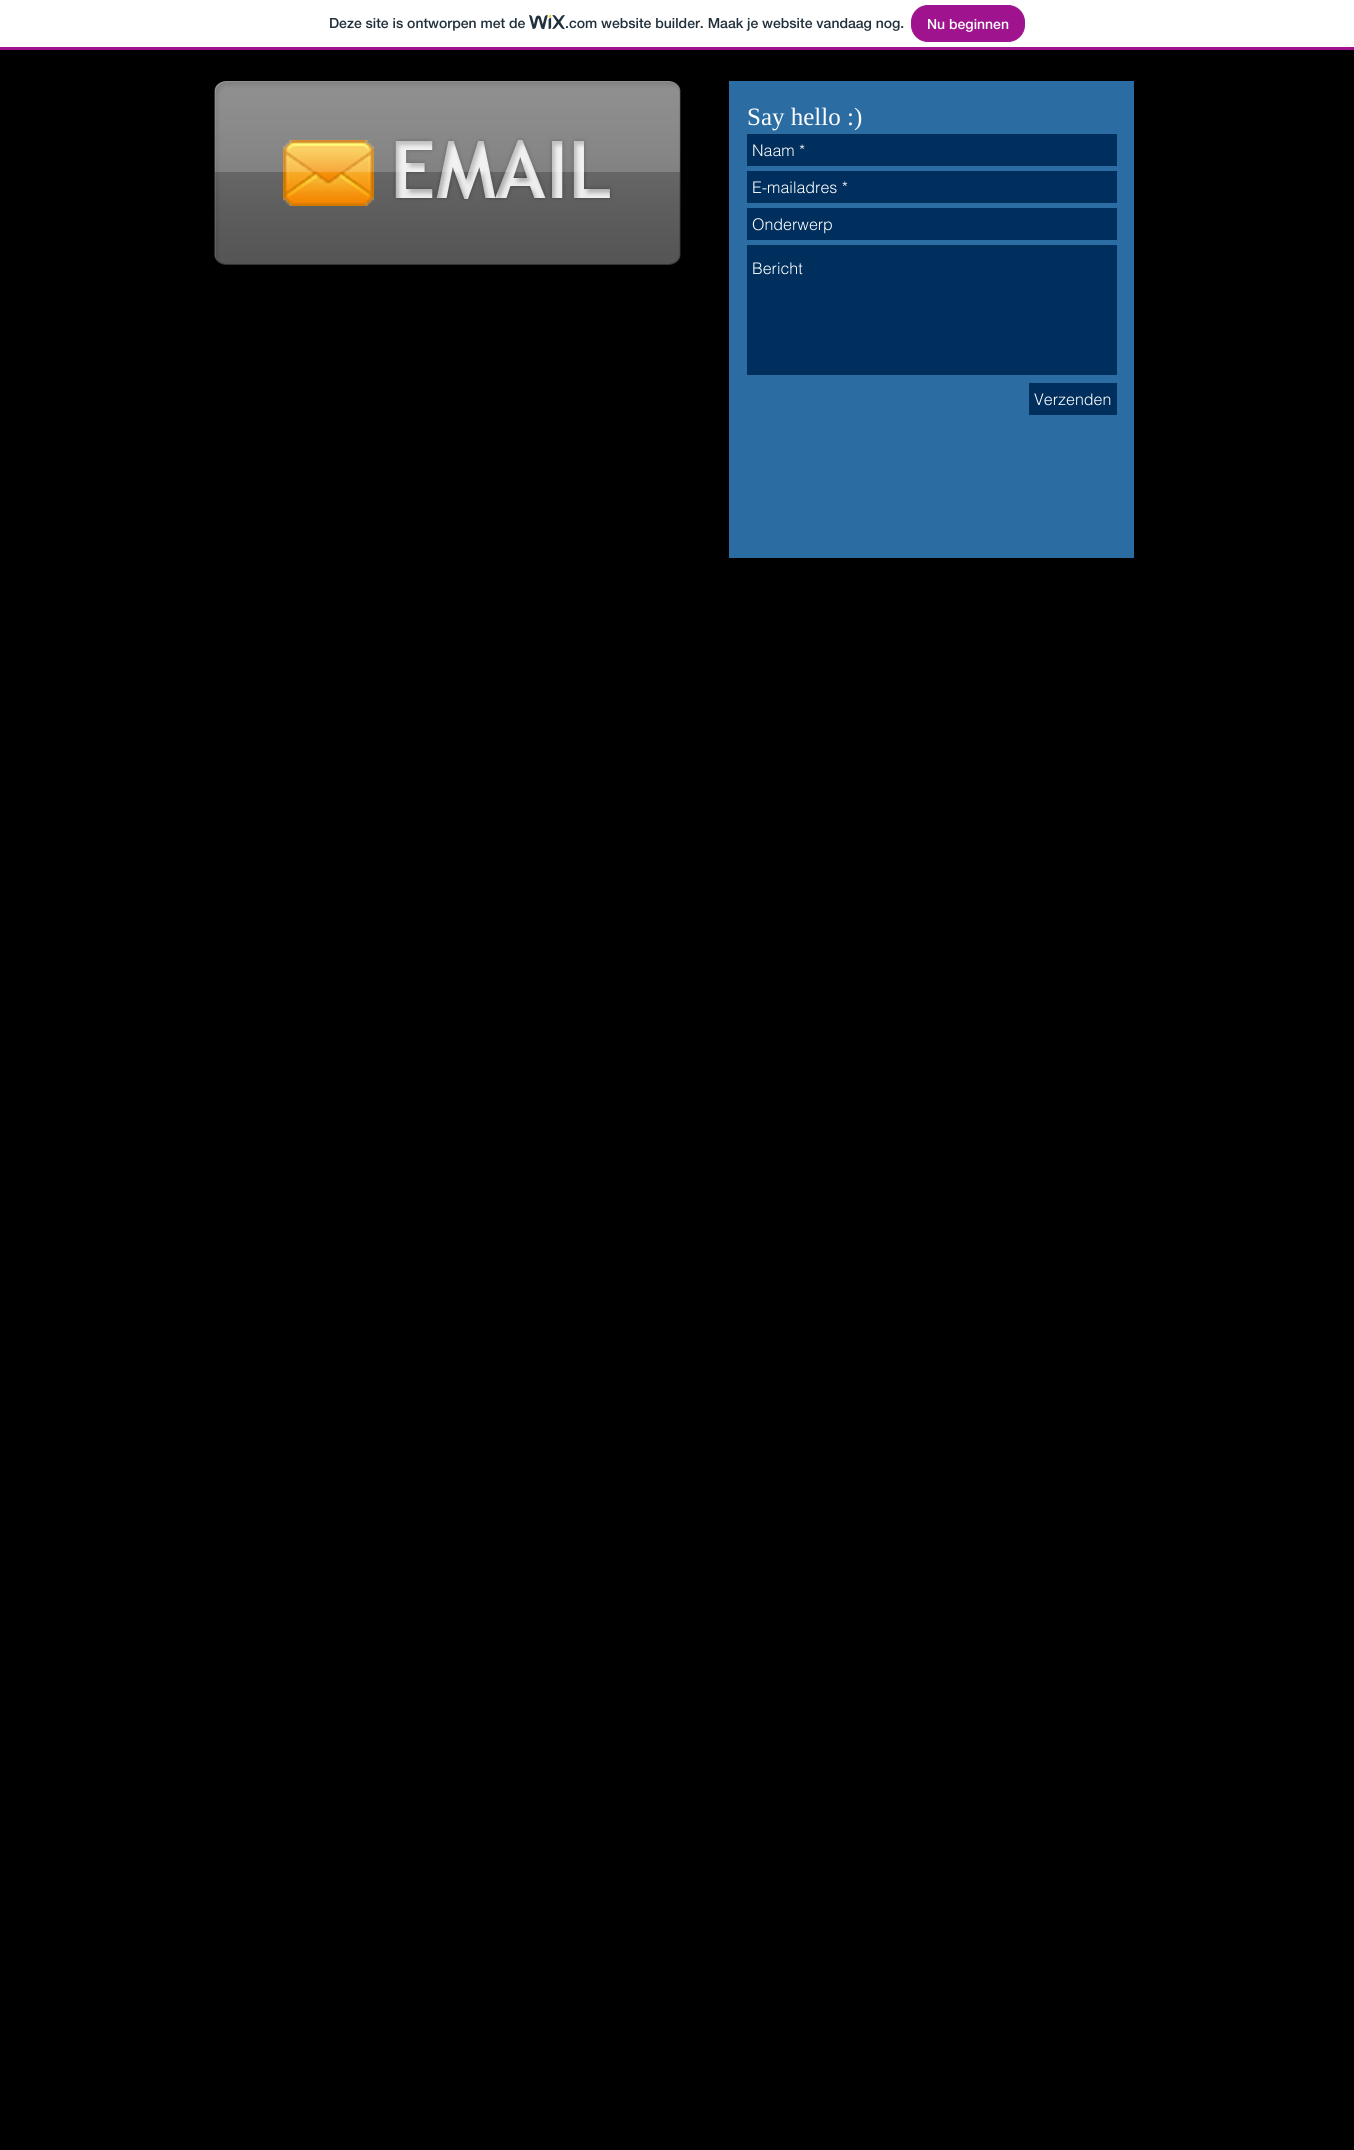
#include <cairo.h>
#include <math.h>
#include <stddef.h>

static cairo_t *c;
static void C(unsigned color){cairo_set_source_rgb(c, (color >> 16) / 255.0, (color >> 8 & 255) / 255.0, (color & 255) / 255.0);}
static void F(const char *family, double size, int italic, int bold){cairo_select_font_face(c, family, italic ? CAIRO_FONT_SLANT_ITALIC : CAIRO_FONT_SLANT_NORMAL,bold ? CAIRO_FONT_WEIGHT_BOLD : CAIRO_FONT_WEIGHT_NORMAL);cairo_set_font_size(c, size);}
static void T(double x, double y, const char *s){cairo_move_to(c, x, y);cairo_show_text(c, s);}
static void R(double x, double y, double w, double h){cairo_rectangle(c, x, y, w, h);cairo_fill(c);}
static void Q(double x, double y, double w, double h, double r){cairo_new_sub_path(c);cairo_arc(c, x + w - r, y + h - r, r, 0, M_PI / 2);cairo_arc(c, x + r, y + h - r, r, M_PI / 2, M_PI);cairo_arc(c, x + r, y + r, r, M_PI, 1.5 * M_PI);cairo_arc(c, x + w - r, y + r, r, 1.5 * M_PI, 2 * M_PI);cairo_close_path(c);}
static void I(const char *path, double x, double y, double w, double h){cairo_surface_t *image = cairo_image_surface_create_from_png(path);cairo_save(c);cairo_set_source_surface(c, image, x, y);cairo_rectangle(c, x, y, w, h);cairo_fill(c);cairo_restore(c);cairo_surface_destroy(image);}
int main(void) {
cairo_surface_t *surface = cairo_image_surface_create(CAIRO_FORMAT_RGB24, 1354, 2150);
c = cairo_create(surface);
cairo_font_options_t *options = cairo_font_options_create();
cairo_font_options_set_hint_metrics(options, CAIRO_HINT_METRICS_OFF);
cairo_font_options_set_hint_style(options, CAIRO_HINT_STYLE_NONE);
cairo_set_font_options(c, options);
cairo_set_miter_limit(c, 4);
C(0xffffff);
cairo_paint(c);
C(0xa0138e);
R(0,47,1354,3);
F("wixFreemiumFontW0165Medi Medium",14,0,0);
C(0x20303c);
T(329,28,"Deze site is ontworpen met de");
I("1.png",529,15,36,15);
T(565,28,".com website builder. Maak je website vandaag nog.");
C(0xa0138e);
Q(911.5,5.5,113,36,16.5);
cairo_fill_preserve(c);
cairo_set_line_width(c,1);
cairo_stroke(c);
C(0xffffff);
T(927,29,"Nu beginnen");
C(0x000000);
R(0,50,1354,2100);
I("2.png",214,81,467,184);
C(0x2b6ca3);
R(729,81,405,477);
F("Liberation Serif",25,0,0);
C(0xffffff);
T(747,125,"Say hello :)");
C(0x002e5d);
R(747,134,370,32);
F("helvetica Light",16,0,0);
C(0xffffff);
T(752,156,"Naam *");
C(0x002e5d);
R(747,171,370,32);
C(0xffffff);
T(752,193,"E-mailadres *");
C(0x002e5d);
R(747,208,370,32);
C(0xffffff);
T(752,230,"Onderwerp");
C(0x002e5d);
R(747,245,370,130);
C(0xffffff);
T(752,274,"Bericht");
C(0x002e5d);
R(1029,383,88,32);
C(0xffffff);
T(1034,405,"Verzenden");
cairo_surface_write_to_png(surface, "o.png");
cairo_font_options_destroy(options);
cairo_destroy(c);
cairo_surface_destroy(surface);
return 0;
}
